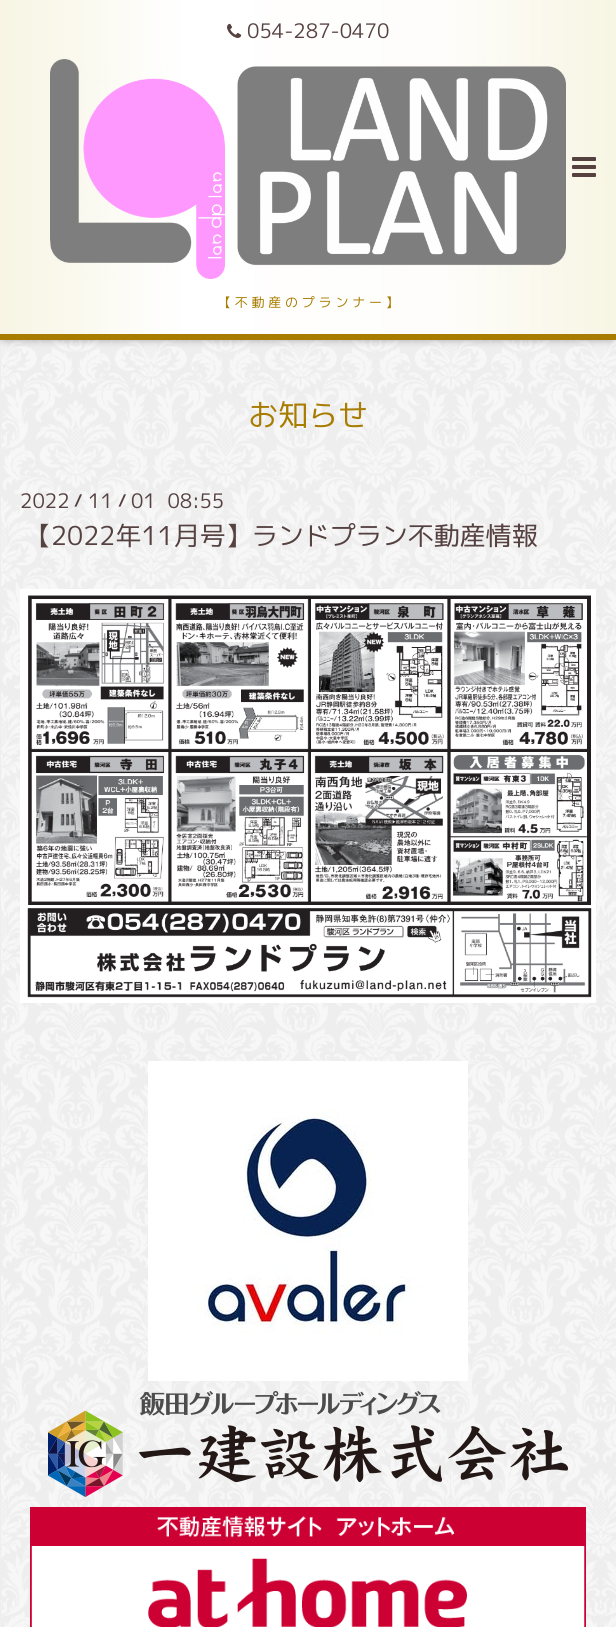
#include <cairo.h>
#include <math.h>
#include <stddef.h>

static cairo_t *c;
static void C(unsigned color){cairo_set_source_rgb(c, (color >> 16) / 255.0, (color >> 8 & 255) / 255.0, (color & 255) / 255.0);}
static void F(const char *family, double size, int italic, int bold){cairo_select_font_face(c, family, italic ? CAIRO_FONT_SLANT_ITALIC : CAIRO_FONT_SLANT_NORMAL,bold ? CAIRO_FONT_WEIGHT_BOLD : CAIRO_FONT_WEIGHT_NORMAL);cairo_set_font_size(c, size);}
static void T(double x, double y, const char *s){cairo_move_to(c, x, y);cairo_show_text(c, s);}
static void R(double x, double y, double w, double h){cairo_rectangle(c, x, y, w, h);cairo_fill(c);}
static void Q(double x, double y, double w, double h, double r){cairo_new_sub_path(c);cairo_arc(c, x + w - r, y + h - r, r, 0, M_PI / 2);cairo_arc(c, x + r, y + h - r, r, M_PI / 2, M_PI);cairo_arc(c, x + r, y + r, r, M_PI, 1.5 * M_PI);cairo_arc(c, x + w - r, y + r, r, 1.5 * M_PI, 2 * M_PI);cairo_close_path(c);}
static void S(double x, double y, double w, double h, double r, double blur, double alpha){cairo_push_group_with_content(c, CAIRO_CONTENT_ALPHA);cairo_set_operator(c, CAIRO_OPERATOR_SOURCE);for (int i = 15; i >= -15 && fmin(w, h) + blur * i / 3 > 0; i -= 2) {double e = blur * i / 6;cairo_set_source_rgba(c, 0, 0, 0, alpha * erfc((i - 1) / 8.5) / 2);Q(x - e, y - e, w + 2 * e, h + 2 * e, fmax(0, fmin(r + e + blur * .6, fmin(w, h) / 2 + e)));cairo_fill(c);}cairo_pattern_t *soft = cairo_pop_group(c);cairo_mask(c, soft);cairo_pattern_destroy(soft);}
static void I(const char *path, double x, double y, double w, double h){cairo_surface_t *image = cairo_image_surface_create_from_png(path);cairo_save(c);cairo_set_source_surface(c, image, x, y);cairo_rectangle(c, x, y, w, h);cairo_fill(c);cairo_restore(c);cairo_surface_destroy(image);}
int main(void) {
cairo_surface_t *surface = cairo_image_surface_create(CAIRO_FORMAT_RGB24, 616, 1627);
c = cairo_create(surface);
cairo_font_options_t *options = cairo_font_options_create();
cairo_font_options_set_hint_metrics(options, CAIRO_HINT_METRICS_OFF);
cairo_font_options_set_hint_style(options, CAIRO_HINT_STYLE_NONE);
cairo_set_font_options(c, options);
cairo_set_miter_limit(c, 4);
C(0xeeeeee);
cairo_paint(c);
I("1.png",1,340,615,1287);
C(0x000000);
S(4,5,608,332,0,5,.6);
I("2.png",0,0,616,334);
C(0xa87c00);
R(0,334,616,6);
I("3.png",227,23,15,15);
F("M PLUS 1p",20,0,0);
C(0x564141);
T(247,38,"054-287-0470");
I("4.png",50,59,516,220);
F("M PLUS 1p",13,0,0);
C(0xa87c00);
T(218,307,"【 不 動 産 の プ ラ ン ナ ー 】");
I("5.png",572,157,24,20);
F("M PLUS 1p",30,0,0);
T(248,426,"お知らせ");
F("M PLUS 1p",20,0,0);
C(0x564141);
T(20,508,"2022");
F("M PLUS 1p",16,0,1);
T(74,506,"/");
F("M PLUS 1p",20,0,0);
T(88,508,"11");
F("M PLUS 1p",16,0,1);
T(118,506,"/");
F("M PLUS 1p",20,0,0);
T(131,508,"01  08:55");
F("M PLUS 1p",26,0,0);
T(25,545,"【2022年11月号】ランドプラン不動産情報");
I("6.png",20,589,576,414);
I("7.png",148,1061,320,320);
I("8.png",48,1391,520,106);
I("9.png",30,1507,556,120);
cairo_surface_write_to_png(surface, "o.png");
cairo_font_options_destroy(options);
cairo_destroy(c);
cairo_surface_destroy(surface);
return 0;
}
